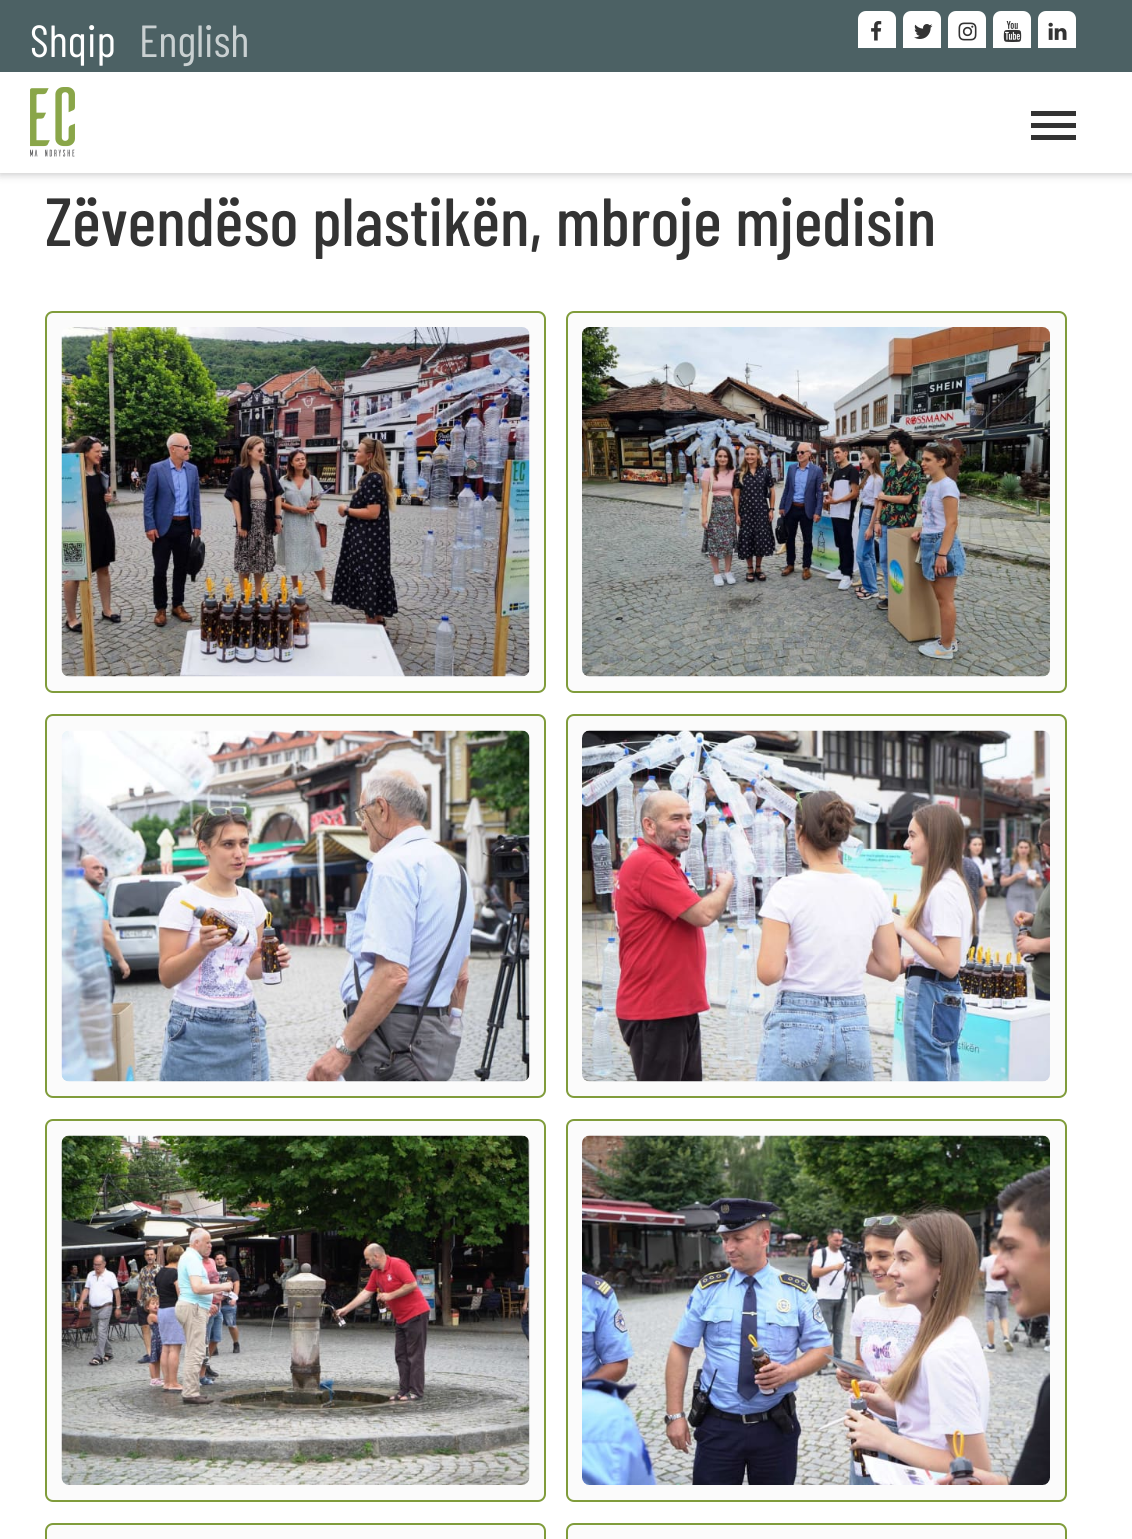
#include <cairo.h>
#include <math.h>
#include <stddef.h>

static cairo_t *c;
static void C(unsigned color){cairo_set_source_rgb(c, (color >> 16) / 255.0, (color >> 8 & 255) / 255.0, (color & 255) / 255.0);}
static void F(const char *family, double size, int italic, int bold){cairo_select_font_face(c, family, italic ? CAIRO_FONT_SLANT_ITALIC : CAIRO_FONT_SLANT_NORMAL,bold ? CAIRO_FONT_WEIGHT_BOLD : CAIRO_FONT_WEIGHT_NORMAL);cairo_set_font_size(c, size);}
static void T(double x, double y, const char *s){cairo_move_to(c, x, y);cairo_show_text(c, s);}
static void R(double x, double y, double w, double h){cairo_rectangle(c, x, y, w, h);cairo_fill(c);}
static void Q(double x, double y, double w, double h, double r){cairo_new_sub_path(c);cairo_arc(c, x + w - r, y + h - r, r, 0, M_PI / 2);cairo_arc(c, x + r, y + h - r, r, M_PI / 2, M_PI);cairo_arc(c, x + r, y + r, r, M_PI, 1.5 * M_PI);cairo_arc(c, x + w - r, y + r, r, 1.5 * M_PI, 2 * M_PI);cairo_close_path(c);}
static void S(double x, double y, double w, double h, double r, double blur, double alpha){cairo_push_group_with_content(c, CAIRO_CONTENT_ALPHA);cairo_set_operator(c, CAIRO_OPERATOR_SOURCE);for (int i = 15; i >= -15 && fmin(w, h) + blur * i / 3 > 0; i -= 2) {double e = blur * i / 6;cairo_set_source_rgba(c, 0, 0, 0, alpha * erfc((i - 1) / 8.5) / 2);Q(x - e, y - e, w + 2 * e, h + 2 * e, fmax(0, fmin(r + e + blur * .6, fmin(w, h) / 2 + e)));cairo_fill(c);}cairo_pattern_t *soft = cairo_pop_group(c);cairo_mask(c, soft);cairo_pattern_destroy(soft);}
static void I(const char *path, double x, double y, double w, double h){cairo_surface_t *image = cairo_image_surface_create_from_png(path);cairo_save(c);cairo_set_source_surface(c, image, x, y);cairo_rectangle(c, x, y, w, h);cairo_fill(c);cairo_restore(c);cairo_surface_destroy(image);}
int main(void) {
cairo_surface_t *surface = cairo_image_surface_create(CAIRO_FORMAT_RGB24, 1132, 1539);
c = cairo_create(surface);
cairo_font_options_t *options = cairo_font_options_create();
cairo_font_options_set_hint_metrics(options, CAIRO_HINT_METRICS_OFF);
cairo_font_options_set_hint_style(options, CAIRO_HINT_STYLE_NONE);
cairo_set_font_options(c, options);
cairo_set_miter_limit(c, 4);
C(0xffffff);
cairo_paint(c);
C(0x202124);
S(0,2,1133,172,0,4.5,.28);
C(0x4c6164);
R(0,0,1132,72);
F("Barlow Condensed",45,0,0);
C(0xffffff);
T(30,57,"Shqip");
C(0xc9d0d1);
T(139,57,"English");
C(0xffffff);
cairo_new_path(c);
cairo_move_to(c,866,11);
cairo_line_to(c,888,11);
cairo_curve_to(c,892.5,11,896,14.5,896,19);
cairo_line_to(c,896,48);
cairo_line_to(c,858,48);
cairo_line_to(c,858,19);
cairo_curve_to(c,858,14.5,861.5,11,866,11);
cairo_close_path(c);
cairo_fill(c);
I("1.png",871,21,11,20);
cairo_new_path(c);
cairo_move_to(c,911,11);
cairo_line_to(c,933,11);
cairo_curve_to(c,937.5,11,941,14.5,941,19);
cairo_line_to(c,941,48);
cairo_line_to(c,903,48);
cairo_line_to(c,903,19);
cairo_curve_to(c,903,14.5,906.5,11,911,11);
cairo_close_path(c);
cairo_fill(c);
I("2.png",914,24,19,15);
cairo_new_path(c);
cairo_move_to(c,956,11);
cairo_line_to(c,978,11);
cairo_curve_to(c,982.5,11,986,14.5,986,19);
cairo_line_to(c,986,48);
cairo_line_to(c,948,48);
cairo_line_to(c,948,19);
cairo_curve_to(c,948,14.5,951.5,11,956,11);
cairo_close_path(c);
cairo_fill(c);
I("3.png",958,22,19,19);
cairo_new_path(c);
cairo_move_to(c,1001,11);
cairo_line_to(c,1023,11);
cairo_curve_to(c,1027.5,11,1031,14.5,1031,19);
cairo_line_to(c,1031,48);
cairo_line_to(c,993,48);
cairo_line_to(c,993,19);
cairo_curve_to(c,993,14.5,996.5,11,1001,11);
cairo_close_path(c);
cairo_fill(c);
I("4.png",1003,21,19,21);
cairo_new_path(c);
cairo_move_to(c,1046,11);
cairo_line_to(c,1068,11);
cairo_curve_to(c,1072.5,11,1076,14.5,1076,19);
cairo_line_to(c,1076,48);
cairo_line_to(c,1038,48);
cairo_line_to(c,1038,19);
cairo_curve_to(c,1038,14.5,1041.5,11,1046,11);
cairo_close_path(c);
cairo_fill(c);
I("5.png",1048,22,19,18);
R(0,72,1132,101);
I("6.png",30,87,45,70);
C(0x333333);
R(1031,123,45,5);
R(1031,111,45,5);
R(1031,135,45,5);
F("Barlow Condensed Medium",68,0,0);
T(45,246,"Zëvendëso plastikën, mbroje mjedisin");
C(0xfbfbfb);
Q(46,312,499,380,7);
cairo_fill_preserve(c);
C(0x809c3b);
cairo_stroke(c);
I("7.png",61,327,469,350);
C(0xfbfbfb);
Q(567,312,499,380,7);
cairo_fill_preserve(c);
C(0x809c3b);
cairo_stroke(c);
I("8.png",582,327,468,350);
C(0xfbfbfb);
Q(46,715,499,382,7);
cairo_fill_preserve(c);
C(0x809c3b);
cairo_stroke(c);
I("9.png",61,730,469,352);
C(0xfbfbfb);
Q(567,715,499,382,7);
cairo_fill_preserve(c);
C(0x809c3b);
cairo_stroke(c);
I("10.png",582,730,468,352);
C(0xfbfbfb);
Q(46,1120,499,381,7);
cairo_fill_preserve(c);
C(0x809c3b);
cairo_stroke(c);
I("11.png",61,1135,469,350);
C(0xfbfbfb);
Q(567,1120,499,381,7);
cairo_fill_preserve(c);
C(0x809c3b);
cairo_stroke(c);
I("12.png",582,1135,468,350);
C(0xfbfbfb);
Q(46,1524,499,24,7);
cairo_fill_preserve(c);
C(0x809c3b);
cairo_stroke(c);
C(0xfbfbfb);
Q(567,1524,499,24,7);
cairo_fill_preserve(c);
C(0x809c3b);
cairo_stroke(c);
cairo_surface_write_to_png(surface, "o.png");
cairo_font_options_destroy(options);
cairo_destroy(c);
cairo_surface_destroy(surface);
return 0;
}
